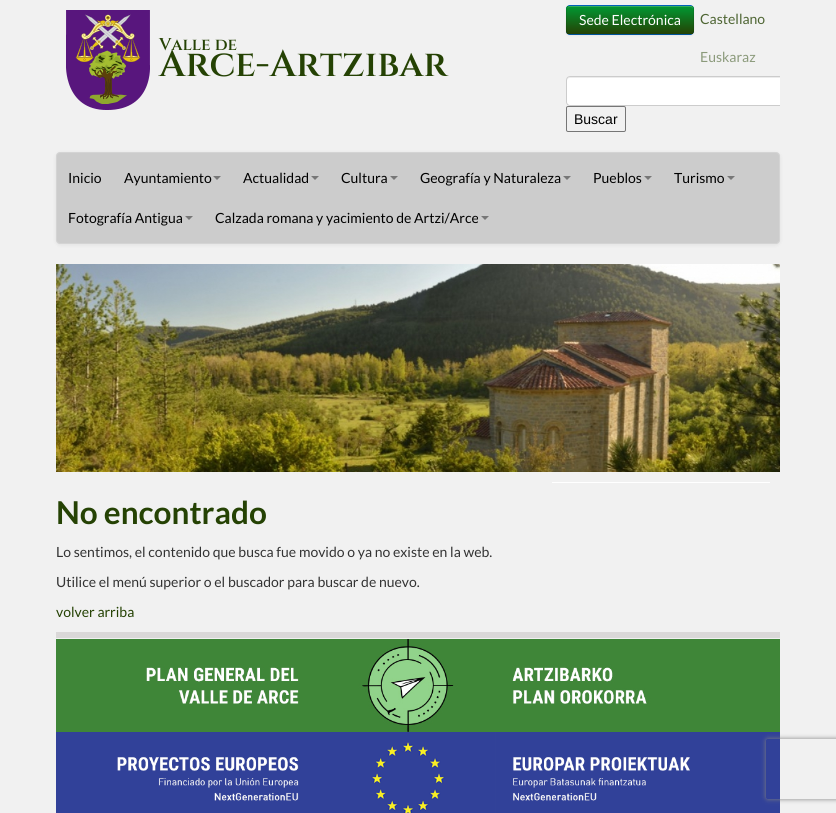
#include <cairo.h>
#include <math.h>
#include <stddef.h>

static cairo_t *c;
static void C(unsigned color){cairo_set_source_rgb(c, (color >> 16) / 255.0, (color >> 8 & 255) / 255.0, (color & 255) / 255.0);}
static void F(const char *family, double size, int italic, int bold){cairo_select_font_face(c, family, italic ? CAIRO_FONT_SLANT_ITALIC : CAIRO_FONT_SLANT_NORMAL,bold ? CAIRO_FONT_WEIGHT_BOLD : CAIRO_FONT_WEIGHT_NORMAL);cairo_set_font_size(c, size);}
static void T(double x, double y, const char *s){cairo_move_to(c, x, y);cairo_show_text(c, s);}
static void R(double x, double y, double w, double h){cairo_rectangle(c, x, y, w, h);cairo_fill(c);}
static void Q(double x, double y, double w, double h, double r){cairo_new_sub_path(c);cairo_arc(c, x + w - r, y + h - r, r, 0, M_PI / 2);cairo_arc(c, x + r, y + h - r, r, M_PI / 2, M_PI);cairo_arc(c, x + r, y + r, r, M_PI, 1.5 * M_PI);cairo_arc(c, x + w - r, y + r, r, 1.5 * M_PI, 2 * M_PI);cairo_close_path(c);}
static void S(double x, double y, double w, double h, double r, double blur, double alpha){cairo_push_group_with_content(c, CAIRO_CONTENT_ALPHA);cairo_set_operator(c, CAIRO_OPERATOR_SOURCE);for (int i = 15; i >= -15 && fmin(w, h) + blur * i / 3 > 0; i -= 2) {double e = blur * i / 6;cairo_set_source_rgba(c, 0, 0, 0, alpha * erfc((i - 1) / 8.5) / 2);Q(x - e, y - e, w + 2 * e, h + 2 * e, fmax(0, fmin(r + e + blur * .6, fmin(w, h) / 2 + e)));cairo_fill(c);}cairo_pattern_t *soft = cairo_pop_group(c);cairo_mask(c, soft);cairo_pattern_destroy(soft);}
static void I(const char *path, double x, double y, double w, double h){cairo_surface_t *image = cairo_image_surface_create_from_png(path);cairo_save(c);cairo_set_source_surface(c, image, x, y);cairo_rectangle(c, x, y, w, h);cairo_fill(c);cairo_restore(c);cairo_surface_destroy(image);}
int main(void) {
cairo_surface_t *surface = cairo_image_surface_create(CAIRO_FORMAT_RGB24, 836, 813);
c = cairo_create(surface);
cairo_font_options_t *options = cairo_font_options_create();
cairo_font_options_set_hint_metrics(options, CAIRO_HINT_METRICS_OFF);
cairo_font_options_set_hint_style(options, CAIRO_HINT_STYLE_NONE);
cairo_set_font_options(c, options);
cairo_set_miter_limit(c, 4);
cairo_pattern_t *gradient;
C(0xf1f1f1);
cairo_paint(c);
I("1.png",66,10,84,100);
F("Cinzel SemiBold",17,0,0);
C(0x254204);
T(159,50,"Valle de");
F("Cinzel SemiBold",37,0,0);
T(159,76,"Arce-Artzibar");
C(0x000000);
S(566,6,128,30,4,1,.05);
C(0x006dcc);
Q(566,5,128,30,4);
cairo_fill(c);
cairo_save(c);
Q(566,5,128,30,4);
cairo_clip(c);
gradient = cairo_pattern_create_linear(630,6,630,34);
cairo_pattern_add_color_stop_rgba(gradient,0,0,0.6,0.2,1);
cairo_pattern_add_color_stop_rgba(gradient,1,0.145,0.259,0.016,1);
cairo_set_source(c,gradient);
cairo_pattern_destroy(gradient);
R(566,6,128,28);
cairo_restore(c);
cairo_set_source_rgba(c,1,1,1,0.2);
cairo_new_path(c);
cairo_move_to(c,570,7);
cairo_line_to(c,690,7);
cairo_curve_to(c,692,7,693,8,693,10);
cairo_curve_to(c,693,8,693,6,691,6);
cairo_line_to(c,570,6);
cairo_curve_to(c,568,6,567,8,567,10);
cairo_curve_to(c,567,8,568,7,570,7);
cairo_close_path(c);
cairo_fill(c);
cairo_new_path(c);
cairo_move_to(c,692.5,33.5);
cairo_curve_to(c,692,34,691,34.5,690,34.5);
cairo_line_to(c,570,34.5);
cairo_curve_to(c,569,34.5,568,34,567.5,33.5);
cairo_set_source_rgba(c,0,0,0,0.25);
cairo_set_line_width(c,1);
cairo_stroke(c);
cairo_new_path(c);
cairo_move_to(c,567.5,33.5);
cairo_curve_to(c,565.5,31.5,566.5,23,566.5,20);
cairo_line_to(c,566.5,12.5);
cairo_curve_to(c,566.5,10,566,5.5,570,5.5);
cairo_line_to(c,690,5.5);
cairo_curve_to(c,694,5.5,693.5,10,693.5,12.5);
cairo_line_to(c,693.5,20);
cairo_curve_to(c,693.5,23,694.5,31.5,692.5,33.5);
cairo_set_source_rgba(c,0,0,0,0.1);
cairo_stroke(c);
F("Lato",14,0,0);
C(0xffffff);
T(579,25,"Sede Electrónica");
C(0x4e6533);
T(700,24,"Castellano");
C(0x8b9a7b);
T(700,62,"Euskaraz");
C(0xffffff);
cairo_new_path(c);
cairo_move_to(c,570,76);
cairo_line_to(c,780,76);
cairo_line_to(c,780,106);
cairo_line_to(c,570,106);
cairo_curve_to(c,568,106,566,104,566,102);
cairo_line_to(c,566,80);
cairo_curve_to(c,566,78,568,76,570,76);
cairo_close_path(c);
cairo_fill(c);
cairo_save(c);
cairo_rectangle(c,56,0,724,482);
cairo_clip(c);
C(0xececec);
cairo_new_path(c);
cairo_move_to(c,570,78);
cairo_line_to(c,782,78);
cairo_curve_to(c,784,78,785,79,785,81);
cairo_line_to(c,785,80);
cairo_curve_to(c,785,78,784,77,782,77);
cairo_line_to(c,570,77);
cairo_curve_to(c,568,77,567,78,567,80);
cairo_line_to(c,567,81);
cairo_curve_to(c,567,79,568,78,570,78);
cairo_close_path(c);
cairo_fill(c);
Q(566.5,76.5,219,29,3.5);
C(0xcccccc);
cairo_stroke(c);
cairo_restore(c);
Q(566.5,106.5,59,25,1.5);
C(0x767676);
cairo_stroke(c);
F("Liberation Sans",14,0,0);
C(0x000000);
T(574,124,"Buscar");
C(0x000000);
S(56,153,724,92,4,2,.07);
C(0xcccccc);
Q(56.5,152.5,723,91,3.5);
cairo_fill_preserve(c);
C(0xd4d4d4);
cairo_stroke(c);
F("Lato",14,0,0);
C(0x000000);
T(68,183,"Inicio");
T(124,183,"Ayuntamiento");
C(0x777777);
cairo_new_path(c);
cairo_move_to(c,213,176);
cairo_line_to(c,221,176);
cairo_line_to(c,217,180);
cairo_close_path(c);
cairo_fill(c);
C(0x000000);
T(243,183,"Actualidad");
C(0x777777);
cairo_new_path(c);
cairo_move_to(c,311,176);
cairo_line_to(c,319,176);
cairo_line_to(c,315,180);
cairo_close_path(c);
cairo_fill(c);
C(0x000000);
T(341,183,"Cultura");
C(0x777777);
cairo_new_path(c);
cairo_move_to(c,390,176);
cairo_line_to(c,398,176);
cairo_line_to(c,394,180);
cairo_close_path(c);
cairo_fill(c);
C(0x000000);
T(420,183,"Geografía y Naturaleza");
C(0x777777);
cairo_new_path(c);
cairo_move_to(c,563,176);
cairo_line_to(c,571,176);
cairo_line_to(c,567,180);
cairo_close_path(c);
cairo_fill(c);
C(0x000000);
T(593,183,"Pueblos");
C(0x777777);
cairo_new_path(c);
cairo_move_to(c,644,176);
cairo_line_to(c,652,176);
cairo_line_to(c,648,180);
cairo_close_path(c);
cairo_fill(c);
C(0x000000);
T(674,183,"Turismo");
C(0x777777);
cairo_new_path(c);
cairo_move_to(c,727,176);
cairo_line_to(c,735,176);
cairo_line_to(c,731,180);
cairo_close_path(c);
cairo_fill(c);
C(0x000000);
T(68,223,"Fotografía Antigua");
C(0x777777);
cairo_new_path(c);
cairo_move_to(c,185,216);
cairo_line_to(c,193,216);
cairo_line_to(c,189,220);
cairo_close_path(c);
cairo_fill(c);
C(0x000000);
T(215,223,"Calzada romana y yacimiento de Artzi/Arce");
C(0x777777);
cairo_new_path(c);
cairo_move_to(c,481,216);
cairo_line_to(c,489,216);
cairo_line_to(c,485,220);
cairo_close_path(c);
cairo_fill(c);
I("2.png",56,264,724,208);
C(0xffffff);
R(552,482,218,1);
F("Lato",31.5,0,1);
C(0x254204);
T(56,524,"No encontrado");
F("Lato",14,0,0);
C(0x333333);
T(56,557,"Lo sentimos, el contenido que busca fue movido o ya no existe en la web.");
T(56,587,"Utilice el menú superior o el buscador para buscar de nuevo.");
C(0x254204);
T(56,617,"volver arriba");
C(0xdad8d8);
R(56,632,724,6);
I("3.png",56,639,724,93);
I("4.png",56,732,724,81);
cairo_save(c);
cairo_set_fill_rule(c,CAIRO_FILL_RULE_EVEN_ODD);
cairo_new_path(c);
cairo_move_to(c,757,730);
cairo_line_to(c,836,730);
cairo_line_to(c,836,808);
cairo_line_to(c,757,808);
cairo_close_path(c);
cairo_move_to(c,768,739);
cairo_line_to(c,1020,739);
cairo_curve_to(c,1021,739,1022,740,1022,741);
cairo_line_to(c,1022,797);
cairo_curve_to(c,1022,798,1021,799,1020,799);
cairo_line_to(c,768,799);
cairo_curve_to(c,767,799,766,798,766,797);
cairo_line_to(c,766,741);
cairo_curve_to(c,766,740,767,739,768,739);
cairo_close_path(c);
cairo_clip(c);
C(0x808080);
S(766,739,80,60,2,2.5,1);
cairo_restore(c);
cairo_surface_write_to_png(surface, "o.png");
cairo_font_options_destroy(options);
cairo_destroy(c);
cairo_surface_destroy(surface);
return 0;
}
